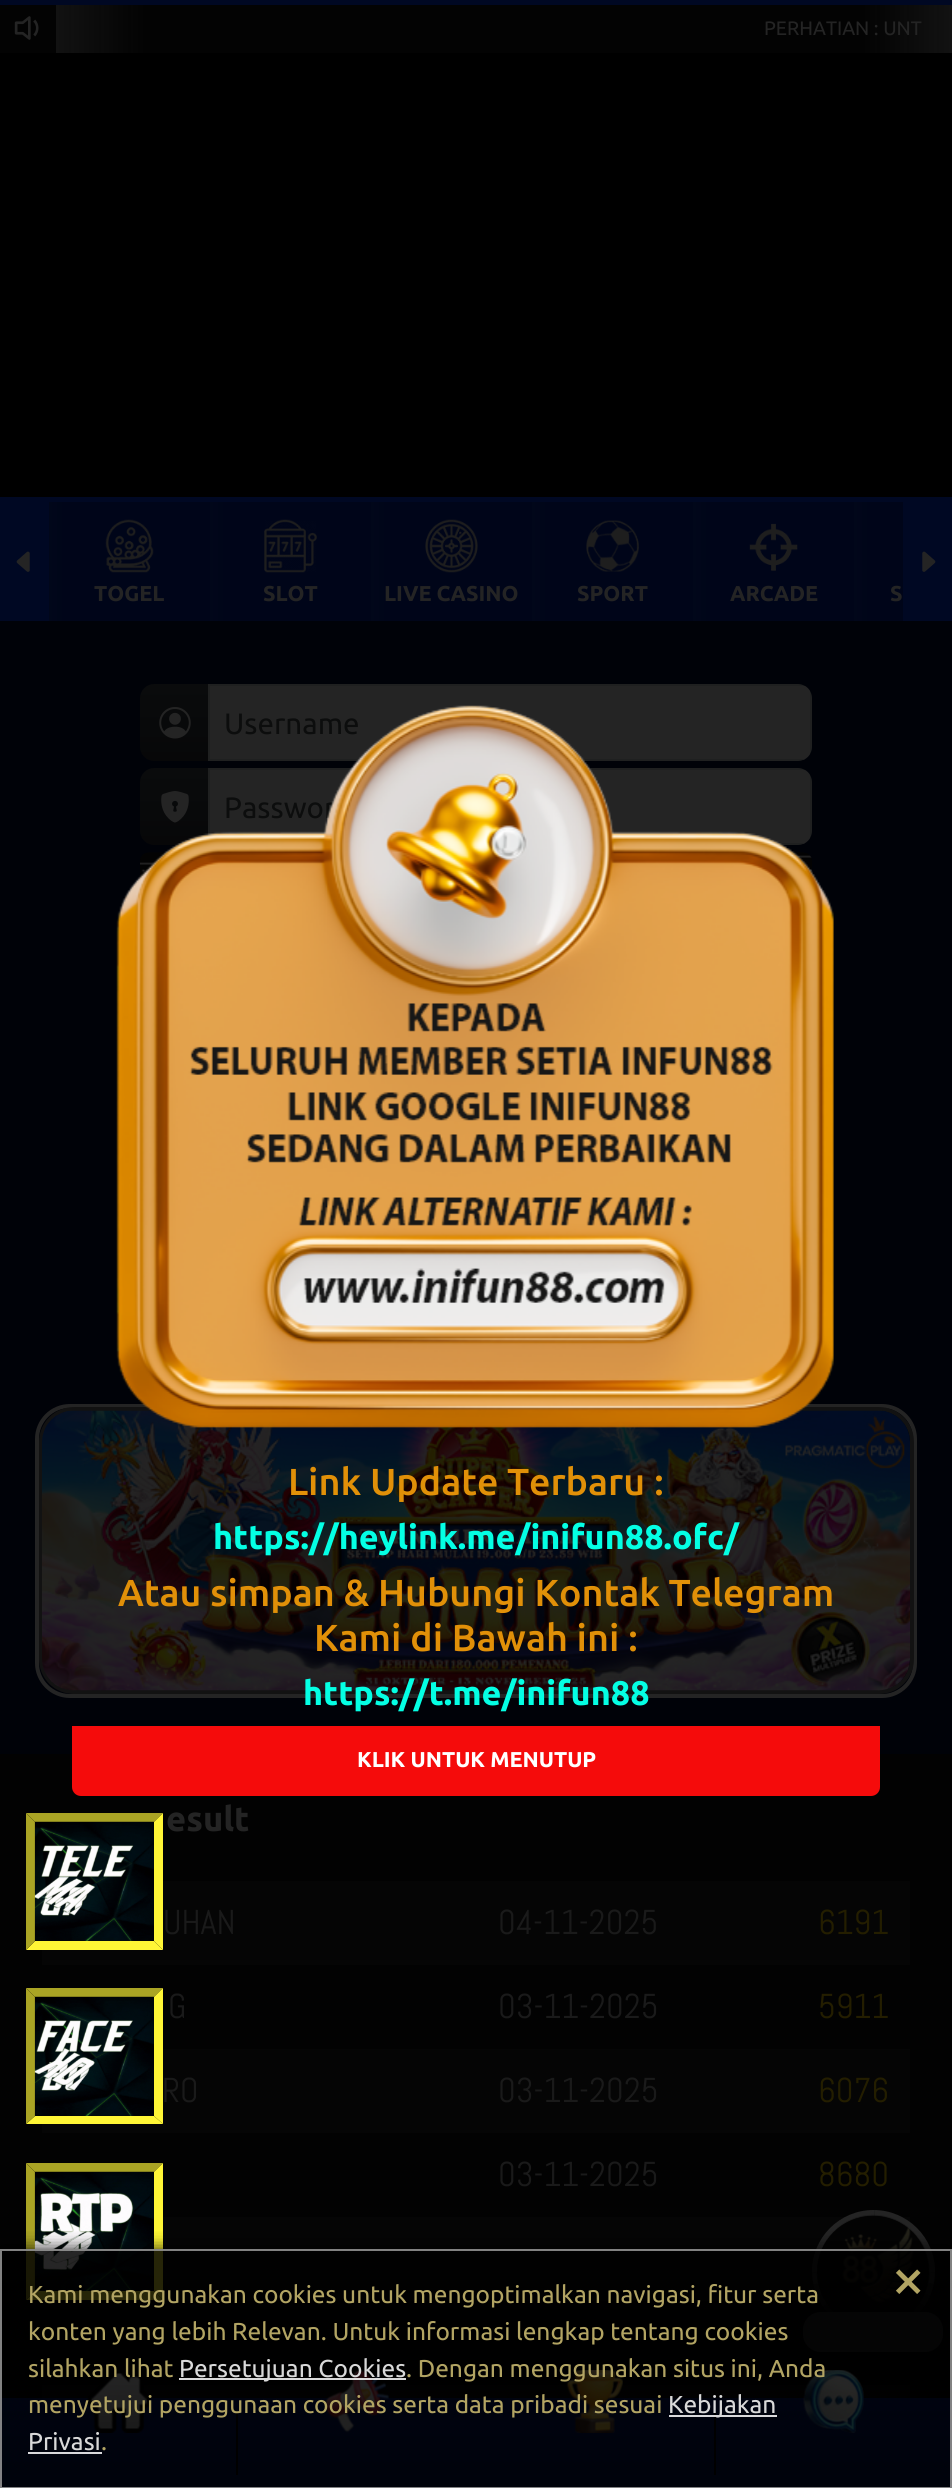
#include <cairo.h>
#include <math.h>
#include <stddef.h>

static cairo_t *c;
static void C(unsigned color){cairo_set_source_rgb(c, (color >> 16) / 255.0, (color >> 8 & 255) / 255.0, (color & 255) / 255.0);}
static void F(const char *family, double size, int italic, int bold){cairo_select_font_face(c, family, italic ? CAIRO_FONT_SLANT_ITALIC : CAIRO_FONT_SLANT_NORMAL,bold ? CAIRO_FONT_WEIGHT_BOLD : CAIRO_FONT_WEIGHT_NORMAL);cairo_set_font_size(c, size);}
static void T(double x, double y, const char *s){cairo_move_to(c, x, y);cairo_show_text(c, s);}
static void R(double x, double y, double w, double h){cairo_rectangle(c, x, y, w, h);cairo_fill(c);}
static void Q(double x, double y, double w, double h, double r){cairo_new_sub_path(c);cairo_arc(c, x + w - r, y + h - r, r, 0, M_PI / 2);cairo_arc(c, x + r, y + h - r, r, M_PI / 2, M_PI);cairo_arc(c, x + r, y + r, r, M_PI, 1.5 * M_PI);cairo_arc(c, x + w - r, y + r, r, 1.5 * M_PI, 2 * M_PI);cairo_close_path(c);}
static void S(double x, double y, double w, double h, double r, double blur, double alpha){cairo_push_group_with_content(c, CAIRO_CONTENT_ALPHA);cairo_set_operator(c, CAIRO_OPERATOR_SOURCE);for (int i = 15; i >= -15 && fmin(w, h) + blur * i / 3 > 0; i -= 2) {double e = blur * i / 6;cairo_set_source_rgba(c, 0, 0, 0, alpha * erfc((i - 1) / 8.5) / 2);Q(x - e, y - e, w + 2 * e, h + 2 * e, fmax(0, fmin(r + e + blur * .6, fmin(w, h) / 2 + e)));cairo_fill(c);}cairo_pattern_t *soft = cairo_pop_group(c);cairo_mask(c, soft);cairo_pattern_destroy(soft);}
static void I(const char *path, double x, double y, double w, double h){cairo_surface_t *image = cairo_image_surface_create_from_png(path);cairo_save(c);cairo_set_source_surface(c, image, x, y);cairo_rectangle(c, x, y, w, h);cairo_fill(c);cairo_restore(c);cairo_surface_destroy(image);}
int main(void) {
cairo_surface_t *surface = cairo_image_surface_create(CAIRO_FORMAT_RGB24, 952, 2488);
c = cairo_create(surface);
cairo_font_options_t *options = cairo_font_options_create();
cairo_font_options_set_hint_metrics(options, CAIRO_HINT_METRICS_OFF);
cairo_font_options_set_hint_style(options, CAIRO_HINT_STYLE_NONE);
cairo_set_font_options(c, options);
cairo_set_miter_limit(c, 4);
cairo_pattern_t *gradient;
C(0x000208);
cairo_paint(c);
C(0x030303);
R(0,5,951,48);
C(0x000823);
R(0,0,952,5);
I("1.png",14,16,25,24);
gradient = cairo_pattern_create_linear(56,29,952,29);
cairo_pattern_add_color_stop_rgba(gradient,0,0.071,0.071,0.071,1);
cairo_pattern_add_color_stop_rgba(gradient,.1,0.071,0.071,0.071,0);
cairo_pattern_add_color_stop_rgba(gradient,.9,0.071,0.071,0.071,0);
cairo_pattern_add_color_stop_rgba(gradient,1,0.071,0.071,0.071,1);
cairo_set_source(c,gradient);
cairo_pattern_destroy(gradient);
R(56,5,896,48);
F("Ubuntu",19.5,0,0);
C(0x242424);
T(764,35,"PERHATIAN : UNT");
C(0x000000);
R(0,53,952,444);
C(0x000823);
R(0,497,952,5);
R(0,502,49,119);
I("2.png",16,551,14,21);
gradient = cairo_pattern_create_linear(49,562,210,562);
cairo_pattern_add_color_stop_rgba(gradient,0,0.004,0.027,0.102,1);
cairo_pattern_add_color_stop_rgba(gradient,.1,0,0.02,0.098,1);
cairo_pattern_add_color_stop_rgba(gradient,1,0,0.02,0.098,1);
cairo_set_source(c,gradient);
cairo_pattern_destroy(gradient);
R(49,502,161,119);
I("3.png",105,519,49,54);
F("Ubuntu",21.5,0,1);
C(0x242424);
T(94,601,"TOGEL");
gradient = cairo_pattern_create_linear(210,562,371,562);
cairo_pattern_add_color_stop_rgba(gradient,0,0.004,0.027,0.102,1);
cairo_pattern_add_color_stop_rgba(gradient,.1,0,0.02,0.098,1);
cairo_pattern_add_color_stop_rgba(gradient,1,0,0.02,0.098,1);
cairo_set_source(c,gradient);
cairo_pattern_destroy(gradient);
R(210,502,161,119);
I("4.png",264,519,53,54);
C(0x242424);
T(263,601,"SLOT");
gradient = cairo_pattern_create_linear(371,562,532,562);
cairo_pattern_add_color_stop_rgba(gradient,0,0.004,0.027,0.102,1);
cairo_pattern_add_color_stop_rgba(gradient,.1,0,0.02,0.098,1);
cairo_pattern_add_color_stop_rgba(gradient,1,0,0.02,0.098,1);
cairo_set_source(c,gradient);
cairo_pattern_destroy(gradient);
R(371,502,161,119);
I("5.png",425,519,53,54);
C(0x242424);
T(384,601,"LIVE CASINO");
gradient = cairo_pattern_create_linear(532,562,693,562);
cairo_pattern_add_color_stop_rgba(gradient,0,0.004,0.027,0.102,1);
cairo_pattern_add_color_stop_rgba(gradient,.1,0,0.02,0.098,1);
cairo_pattern_add_color_stop_rgba(gradient,1,0,0.02,0.098,1);
cairo_set_source(c,gradient);
cairo_pattern_destroy(gradient);
R(532,502,161,119);
I("6.png",586,520,53,52);
C(0x242424);
T(577,601,"SPORT");
gradient = cairo_pattern_create_linear(693,562,854,562);
cairo_pattern_add_color_stop_rgba(gradient,0,0.004,0.027,0.102,1);
cairo_pattern_add_color_stop_rgba(gradient,.1,0,0.02,0.098,1);
cairo_pattern_add_color_stop_rgba(gradient,1,0,0.02,0.098,1);
cairo_set_source(c,gradient);
cairo_pattern_destroy(gradient);
R(693,502,161,119);
I("7.png",749,523,49,48);
C(0x242424);
T(730,601,"ARCADE");
gradient = cairo_pattern_create_linear(854,562,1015,562);
cairo_pattern_add_color_stop_rgba(gradient,0,0.004,0.027,0.102,1);
cairo_pattern_add_color_stop_rgba(gradient,.1,0,0.02,0.098,1);
cairo_pattern_add_color_stop_rgba(gradient,1,0,0.02,0.098,1);
cairo_set_source(c,gradient);
cairo_pattern_destroy(gradient);
R(854,502,49,119);
C(0x242424);
T(890,601,"S");
C(0x000823);
R(903,502,49,119);
I("8.png",922,551,14,21);
gradient = cairo_pattern_create_linear(175,684,175,761);
cairo_pattern_add_color_stop_rgba(gradient,0,0.039,0.043,0.047,1);
cairo_pattern_add_color_stop_rgba(gradient,.6,0.031,0.035,0.039,1);
cairo_pattern_add_color_stop_rgba(gradient,1,0.027,0.027,0.031,1);
cairo_set_source(c,gradient);
cairo_pattern_destroy(gradient);
cairo_new_path(c);
cairo_move_to(c,154,684);
cairo_line_to(c,210,684);
cairo_line_to(c,210,761);
cairo_line_to(c,154,761);
cairo_curve_to(c,146.5,761,140,754.5,140,747);
cairo_line_to(c,140,698);
cairo_curve_to(c,140,690.5,146.5,684,154,684);
cairo_close_path(c);
cairo_fill(c);
I("9.png",159,707,32,32);
cairo_save(c);
Q(140,684,672,77,14);
cairo_clip(c);
C(0x242424);
cairo_new_path(c);
cairo_move_to(c,210,686);
cairo_line_to(c,806,686);
cairo_curve_to(c,808,686,810,688,810,690);
cairo_line_to(c,810,756);
cairo_curve_to(c,810,758,808,760,806,760);
cairo_line_to(c,210,760);
cairo_close_path(c);
cairo_fill(c);
cairo_restore(c);
C(0x1f2020);
cairo_set_fill_rule(c,CAIRO_FILL_RULE_EVEN_ODD);
cairo_new_path(c);
cairo_move_to(c,208,684);
cairo_line_to(c,208,761);
cairo_line_to(c,798,761);
cairo_curve_to(c,801,761,803,760,805,759);
cairo_line_to(c,210,759);
cairo_line_to(c,210,686);
cairo_line_to(c,805,686);
cairo_curve_to(c,803,685,801,684,798,684);
cairo_close_path(c);
cairo_move_to(c,812,698);
cairo_curve_to(c,812,695,811,693,810,691);
cairo_line_to(c,810,754);
cairo_curve_to(c,811,752,812,750,812,747);
cairo_close_path(c);
cairo_fill(c);
F("Ubuntu",29.5,0,0);
C(0x0c0d0d);
T(224,734,"Username");
gradient = cairo_pattern_create_linear(175,768,175,845);
cairo_pattern_add_color_stop_rgba(gradient,0,0.039,0.043,0.047,1);
cairo_pattern_add_color_stop_rgba(gradient,.6,0.031,0.035,0.039,1);
cairo_pattern_add_color_stop_rgba(gradient,1,0.027,0.027,0.031,1);
cairo_set_source(c,gradient);
cairo_pattern_destroy(gradient);
cairo_new_path(c);
cairo_move_to(c,154,768);
cairo_line_to(c,210,768);
cairo_line_to(c,210,845);
cairo_line_to(c,154,845);
cairo_curve_to(c,146.5,845,140,838.5,140,831);
cairo_line_to(c,140,782);
cairo_curve_to(c,140,774.5,146.5,768,154,768);
cairo_close_path(c);
cairo_fill(c);
I("10.png",161,791,28,32);
cairo_save(c);
cairo_set_fill_rule(c,CAIRO_FILL_RULE_WINDING);
Q(140,768,672,77,14);
cairo_clip(c);
C(0x242424);
cairo_new_path(c);
cairo_move_to(c,210,770);
cairo_line_to(c,806,770);
cairo_curve_to(c,808,770,810,772,810,774);
cairo_line_to(c,810,840);
cairo_curve_to(c,810,842,808,844,806,844);
cairo_line_to(c,210,844);
cairo_close_path(c);
cairo_fill(c);
cairo_restore(c);
C(0x1f2020);
cairo_new_path(c);
cairo_move_to(c,208,768);
cairo_line_to(c,208,845);
cairo_line_to(c,798,845);
cairo_curve_to(c,801,845,803,844,805,843);
cairo_line_to(c,210,843);
cairo_line_to(c,210,770);
cairo_line_to(c,805,770);
cairo_curve_to(c,803,769,801,768,798,768);
cairo_close_path(c);
cairo_move_to(c,812,782);
cairo_curve_to(c,812,779,811,777,810,775);
cairo_line_to(c,810,838);
cairo_curve_to(c,811,836,812,834,812,831);
cairo_close_path(c);
cairo_fill(c);
C(0x0c0d0d);
T(224,818,"Passwor");
I("11.png",140,852,672,29);
Q(37,1406,878,290,33);
C(0x242424);
cairo_set_line_width(c,4);
cairo_stroke(c);
Q(41,1409,871,283,33);
C(0x121212);
cairo_stroke(c);
I("12.png",42,1410,868,281);
C(0x020202);
R(0,1754,952,644);
F("Ubuntu",34.5,0,1);
C(0x242424);
T(166,1831,"esult");
C(0x050505);
R(42,1881,868,84);
F("Abel",34.5,0,0);
C(0x1a1a1a);
T(163,1934,"UHAN");
T(498,1934,"04-11-2025");
C(0x241e00);
T(818,1934,"6191");
C(0x1a1a1a);
T(168,2018,"G");
T(498,2018,"03-11-2025");
C(0x241e00);
T(818,2018,"5911");
C(0x050505);
R(42,2049,868,84);
C(0x1a1a1a);
T(162,2102,"RO");
T(498,2102,"03-11-2025");
C(0x241e00);
T(818,2102,"6076");
C(0x1a1a1a);
T(498,2186,"03-11-2025");
C(0x241e00);
T(818,2186,"8680");
C(0x050505);
R(42,2217,868,84);
R(42,2385,868,13);
C(0xaaa424);
cairo_set_fill_rule(c,CAIRO_FILL_RULE_WINDING);
cairo_new_path(c);
cairo_move_to(c,26,1813);
cairo_line_to(c,163,1813);
cairo_line_to(c,154,1822);
cairo_line_to(c,35,1822);
cairo_close_path(c);
cairo_fill(c);
C(0xfff636);
cairo_new_path(c);
cairo_move_to(c,163,1813);
cairo_line_to(c,163,1950);
cairo_line_to(c,154,1941);
cairo_line_to(c,154,1822);
cairo_close_path(c);
cairo_fill(c);
cairo_new_path(c);
cairo_move_to(c,163,1950);
cairo_line_to(c,26,1950);
cairo_line_to(c,35,1941);
cairo_line_to(c,154,1941);
cairo_close_path(c);
cairo_fill(c);
C(0xaaa424);
cairo_new_path(c);
cairo_move_to(c,26,1950);
cairo_line_to(c,26,1813);
cairo_line_to(c,35,1822);
cairo_line_to(c,35,1941);
cairo_close_path(c);
cairo_fill(c);
I("13.png",34,1821,120,120);
cairo_new_path(c);
cairo_move_to(c,26,1988);
cairo_line_to(c,163,1988);
cairo_line_to(c,154,1997);
cairo_line_to(c,35,1997);
cairo_close_path(c);
cairo_fill(c);
C(0xfff636);
cairo_new_path(c);
cairo_move_to(c,163,1988);
cairo_line_to(c,163,2124);
cairo_line_to(c,154,2116);
cairo_line_to(c,154,1997);
cairo_close_path(c);
cairo_fill(c);
cairo_new_path(c);
cairo_move_to(c,163,2124);
cairo_line_to(c,26,2124);
cairo_line_to(c,35,2116);
cairo_line_to(c,154,2116);
cairo_close_path(c);
cairo_fill(c);
C(0xaaa424);
cairo_new_path(c);
cairo_move_to(c,26,2124);
cairo_line_to(c,26,1988);
cairo_line_to(c,35,1997);
cairo_line_to(c,35,2116);
cairo_close_path(c);
cairo_fill(c);
I("14.png",34,1996,120,120);
cairo_new_path(c);
cairo_move_to(c,26,2163);
cairo_line_to(c,163,2163);
cairo_line_to(c,154,2172);
cairo_line_to(c,35,2172);
cairo_close_path(c);
cairo_fill(c);
C(0xfff636);
cairo_new_path(c);
cairo_move_to(c,163,2163);
cairo_line_to(c,163,2300);
cairo_line_to(c,154,2291);
cairo_line_to(c,154,2172);
cairo_close_path(c);
cairo_fill(c);
cairo_new_path(c);
cairo_move_to(c,163,2300);
cairo_line_to(c,26,2300);
cairo_line_to(c,35,2291);
cairo_line_to(c,154,2291);
cairo_close_path(c);
cairo_fill(c);
C(0xaaa424);
cairo_new_path(c);
cairo_move_to(c,26,2300);
cairo_line_to(c,26,2163);
cairo_line_to(c,35,2172);
cairo_line_to(c,35,2291);
cairo_close_path(c);
cairo_fill(c);
I("15.png",34,2171,120,120);
I("16.png",812,2210,123,102);
C(0x010101);
cairo_arc(c,873,2272,56,0,2 * M_PI);
cairo_fill(c);
I("17.png",816,2214,114,98);
C(0x242424);
Q(803,2312,140,40,18);
cairo_fill(c);
I("18.png",116,705,718,723);
F("Ubuntu Medium",37.6,0,0);
C(0xe19008);
T(288,1495,"Link Update Terbaru :");
F("Ubuntu",34.1,0,1);
C(0x04ffe4);
T(213,1549,"https://heylink.me/inifun88.ofc/");
F("Ubuntu Medium",37.6,0,0);
C(0xe19008);
T(118,1606,"Atau simpan & Hubungi Kontak Telegram");
T(314,1651,"Kami di Bawah ini :");
F("Ubuntu",34.1,0,1);
C(0x04ffe4);
T(303,1705,"https://t.me/inifun88");
C(0xf50b0b);
cairo_new_path(c);
cairo_move_to(c,72,1726);
cairo_line_to(c,880,1726);
cairo_line_to(c,880,1787);
cairo_curve_to(c,880,1792,876,1796,871,1796);
cairo_line_to(c,81,1796);
cairo_curve_to(c,76,1796,72,1792,72,1787);
cairo_close_path(c);
cairo_fill(c);
F("Ubuntu",21.5,0,1);
C(0xffffff);
T(357,1767,"KLIK UNTUK MENUTUP");
gradient = cairo_pattern_create_linear(476,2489,476,2398);
cairo_pattern_add_color_stop_rgba(gradient,0,0.004,0.067,0.298,1);
cairo_pattern_add_color_stop_rgba(gradient,1,0.004,0.086,0.396,1);
cairo_set_source(c,gradient);
cairo_pattern_destroy(gradient);
R(0,2398,952,90);
I("19.png",86,2373,65,60);
I("20.png",324,2370,65,63);
I("21.png",566,2370,57,63);
I("22.png",803,2370,61,63);
C(0x000000);
R(236,2412,2,63);
R(714,2412,2,63);
cairo_save(c);
cairo_rectangle(c,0,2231,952,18);
cairo_clip(c);
C(0x000000);
S(0,2249,952,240,0,9,.85);
cairo_restore(c);
cairo_set_source_rgba(c,0,0,0,0.85);
R(0,2249,952,239);
cairo_rectangle(c,1,2250,950,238);
cairo_set_source_rgba(c,0.6,0.6,0.6,0.85);
cairo_set_line_width(c,2);
cairo_stroke(c);
F("Ubuntu",24.5,0,0);
C(0xb2a463);
T(28,2303,"Kami menggunakan cookies untuk mengoptimalkan navigasi, fitur serta");
T(28,2340,"konten yang lebih Relevan. Untuk informasi lengkap tentang cookies");
T(28,2377,"silahkan lihat");
cairo_set_source_rgba(c,1,1,1,0.85);
R(179,2378,227,2);
C(0xd9d9d9);
T(179,2377,"Persetujuan Cookies");
C(0xb2a463);
T(406,2377,". Dengan menggunakan situs ini, Anda");
T(28,2413,"menyetujui penggunaan cookies serta data pribadi sesuai");
cairo_set_source_rgba(c,1,1,1,0.85);
R(669,2415,108,2);
C(0xd9d9d9);
T(668,2413,"Kebijakan");
T(28,2450,"Privasi");
cairo_set_source_rgba(c,1,1,1,0.85);
R(28,2452,74,2);
C(0xb2a463);
T(101,2450,".");
F("Ubuntu",61,0,0);
T(891,2300,"×");
cairo_surface_write_to_png(surface, "o.png");
cairo_font_options_destroy(options);
cairo_destroy(c);
cairo_surface_destroy(surface);
return 0;
}
